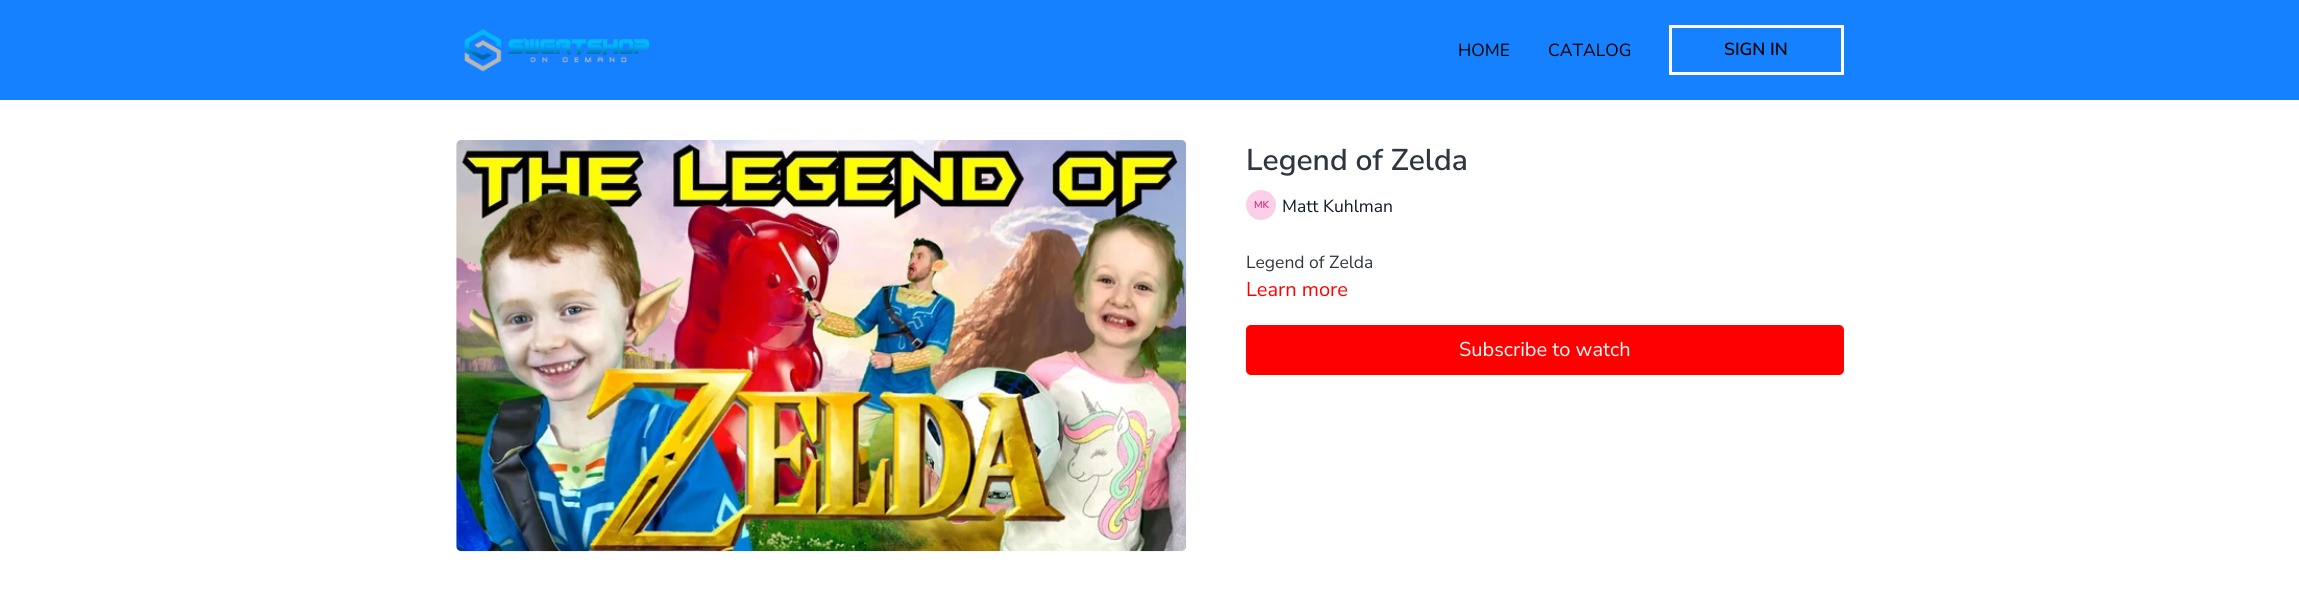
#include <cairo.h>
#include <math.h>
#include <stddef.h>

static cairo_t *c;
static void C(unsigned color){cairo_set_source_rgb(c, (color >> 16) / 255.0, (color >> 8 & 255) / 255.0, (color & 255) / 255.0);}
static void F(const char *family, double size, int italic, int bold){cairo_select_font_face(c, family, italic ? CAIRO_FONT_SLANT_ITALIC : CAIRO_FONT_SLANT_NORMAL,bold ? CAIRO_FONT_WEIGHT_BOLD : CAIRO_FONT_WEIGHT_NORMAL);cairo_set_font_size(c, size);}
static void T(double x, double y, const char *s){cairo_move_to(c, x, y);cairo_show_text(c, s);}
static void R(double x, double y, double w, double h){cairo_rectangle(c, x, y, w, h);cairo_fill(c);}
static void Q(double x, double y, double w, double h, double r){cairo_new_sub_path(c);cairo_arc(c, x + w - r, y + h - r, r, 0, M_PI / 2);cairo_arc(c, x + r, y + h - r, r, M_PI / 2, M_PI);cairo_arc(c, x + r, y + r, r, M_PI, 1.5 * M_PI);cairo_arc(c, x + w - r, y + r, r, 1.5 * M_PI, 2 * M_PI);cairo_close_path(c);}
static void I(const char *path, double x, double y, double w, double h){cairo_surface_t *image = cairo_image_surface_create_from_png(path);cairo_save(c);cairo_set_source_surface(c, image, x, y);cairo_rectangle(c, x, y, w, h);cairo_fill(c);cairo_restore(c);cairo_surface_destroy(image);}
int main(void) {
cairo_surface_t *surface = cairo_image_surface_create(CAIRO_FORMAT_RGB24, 2299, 609);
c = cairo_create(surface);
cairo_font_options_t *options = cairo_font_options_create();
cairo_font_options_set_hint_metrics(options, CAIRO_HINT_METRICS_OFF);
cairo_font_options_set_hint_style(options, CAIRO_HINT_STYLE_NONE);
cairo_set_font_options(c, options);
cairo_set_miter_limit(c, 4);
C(0xffffff);
cairo_paint(c);
C(0x1681ff);
R(0,0,2299,100);
I("1.png",464,29,186,43);
F("Nunito Sans",17.5,0,0);
C(0x000000);
T(1458,56,"HOME");
T(1548,56,"CATALOG");
cairo_rectangle(c,1670.5,26.5,172,47);
C(0xffffff);
cairo_set_line_width(c,3);
cairo_stroke(c);
F("Nunito Sans SemiBold",17.5,0,0);
C(0x000000);
T(1724,55,"SIGN IN");
I("2.png",456,140,731,412);
F("Nunito Sans SemiBold",30,0,0);
C(0x30363e);
T(1246,170,"Legend of Zelda");
C(0xfbcfe8);
cairo_new_path(c);
cairo_arc(c,1261,205,15,0,2 * M_PI);
cairo_fill(c);
F("Nunito Sans SemiBold",10,0,0);
C(0xdb2777);
T(1254,208,"MK");
F("Nunito Sans",17.5,0,0);
C(0x111827);
T(1282,212,"Matt Kuhlman");
C(0x30363e);
T(1246,268,"Legend of Zelda");
F("Nunito Sans",20,0,0);
C(0xff0000);
T(1246,296,"Learn more");
Q(1246,325,598,50,5);
cairo_fill(c);
C(0xffffff);
T(1459,356,"Subscribe to watch");
cairo_surface_write_to_png(surface, "o.png");
cairo_font_options_destroy(options);
cairo_destroy(c);
cairo_surface_destroy(surface);
return 0;
}
